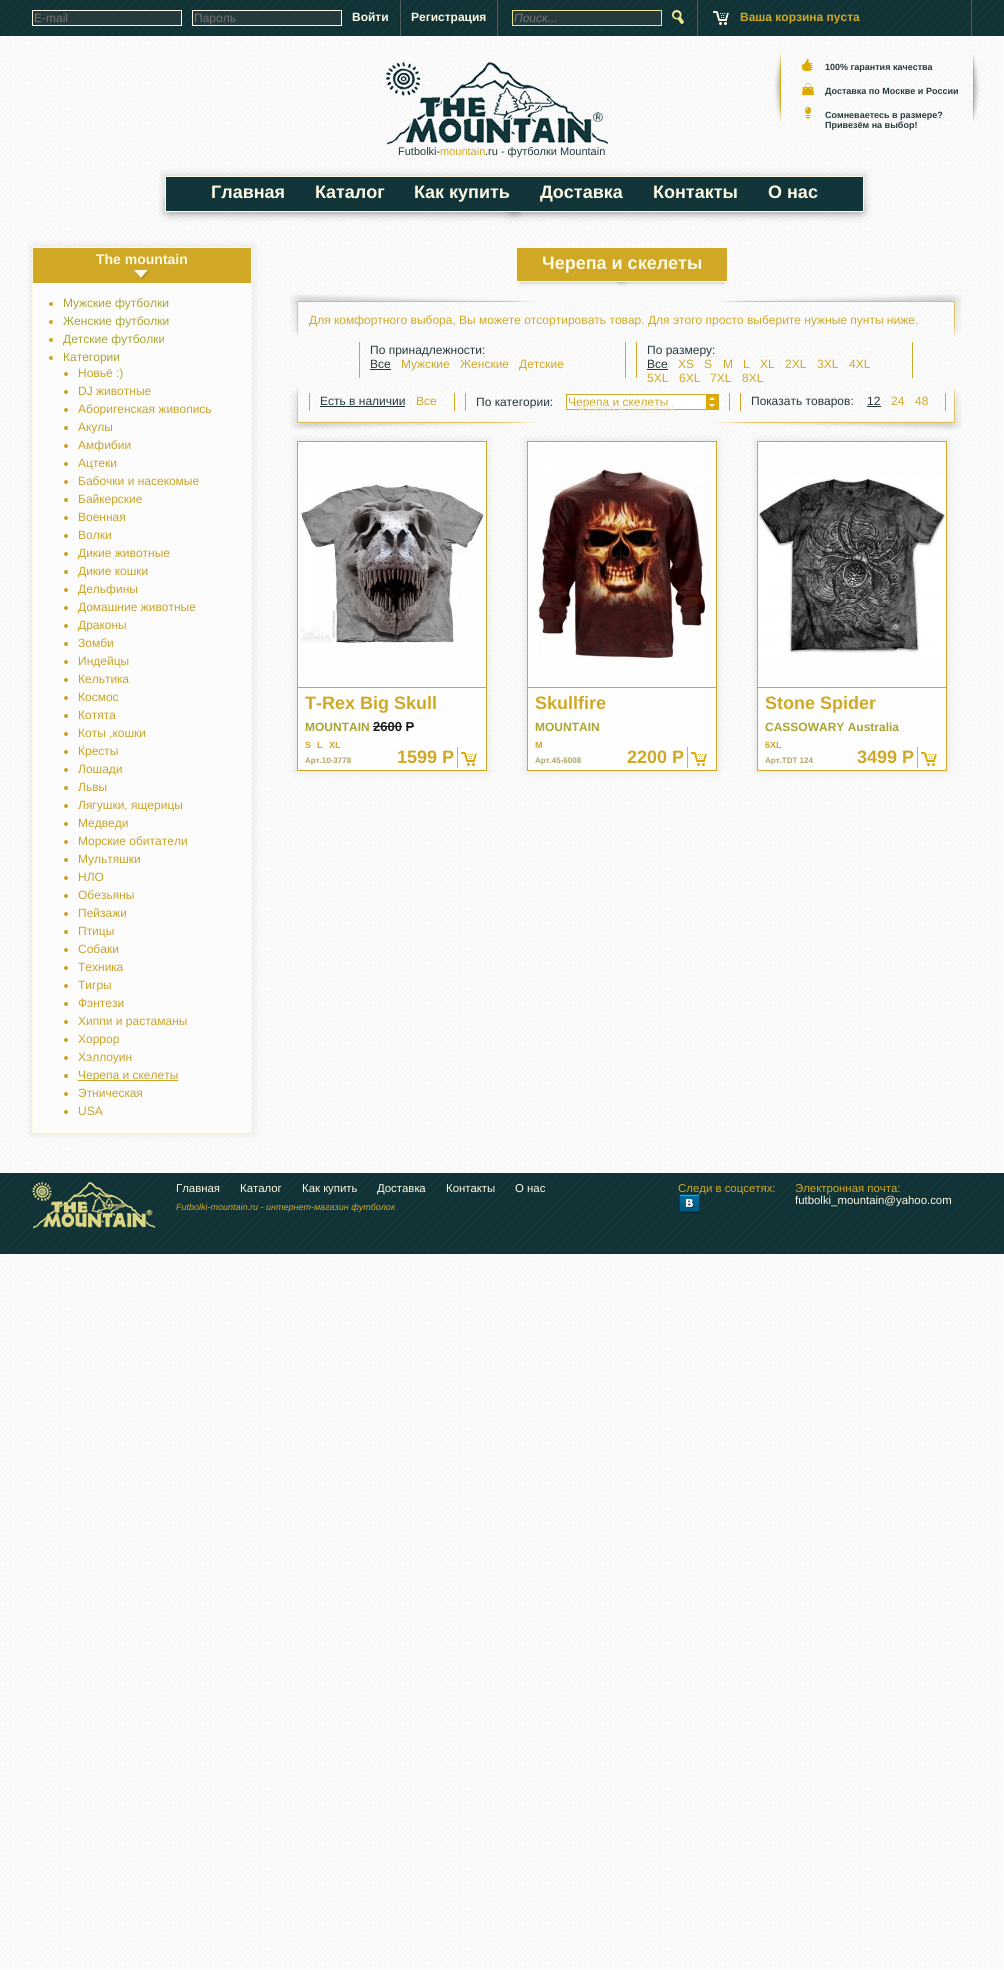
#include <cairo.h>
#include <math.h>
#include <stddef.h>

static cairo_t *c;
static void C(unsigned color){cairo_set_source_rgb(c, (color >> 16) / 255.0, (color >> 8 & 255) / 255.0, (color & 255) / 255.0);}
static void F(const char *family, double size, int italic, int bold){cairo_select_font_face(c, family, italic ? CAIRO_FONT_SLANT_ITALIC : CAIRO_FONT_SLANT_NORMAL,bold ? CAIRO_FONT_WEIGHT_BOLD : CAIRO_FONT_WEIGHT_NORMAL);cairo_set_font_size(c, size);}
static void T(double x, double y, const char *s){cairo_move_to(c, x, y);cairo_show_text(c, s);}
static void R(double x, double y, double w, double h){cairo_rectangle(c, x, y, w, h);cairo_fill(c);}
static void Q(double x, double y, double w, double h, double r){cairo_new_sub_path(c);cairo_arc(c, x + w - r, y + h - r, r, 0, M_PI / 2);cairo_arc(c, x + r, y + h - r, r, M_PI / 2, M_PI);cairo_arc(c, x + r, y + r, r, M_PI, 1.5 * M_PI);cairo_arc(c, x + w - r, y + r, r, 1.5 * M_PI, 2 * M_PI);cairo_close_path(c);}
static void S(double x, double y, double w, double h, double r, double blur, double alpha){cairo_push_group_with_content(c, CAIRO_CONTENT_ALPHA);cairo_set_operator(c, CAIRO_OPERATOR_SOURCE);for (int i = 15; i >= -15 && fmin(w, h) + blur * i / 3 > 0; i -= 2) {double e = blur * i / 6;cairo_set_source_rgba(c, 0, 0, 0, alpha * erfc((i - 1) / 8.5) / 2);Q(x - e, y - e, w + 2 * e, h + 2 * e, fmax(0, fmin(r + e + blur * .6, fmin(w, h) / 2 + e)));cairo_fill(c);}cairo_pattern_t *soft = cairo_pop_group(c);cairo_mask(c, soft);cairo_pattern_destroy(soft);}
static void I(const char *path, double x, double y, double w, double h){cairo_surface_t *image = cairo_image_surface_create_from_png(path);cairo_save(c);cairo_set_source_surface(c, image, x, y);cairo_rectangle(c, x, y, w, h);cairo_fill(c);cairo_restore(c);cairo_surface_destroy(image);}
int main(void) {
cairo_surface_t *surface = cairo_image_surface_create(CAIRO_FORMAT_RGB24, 1004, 1970);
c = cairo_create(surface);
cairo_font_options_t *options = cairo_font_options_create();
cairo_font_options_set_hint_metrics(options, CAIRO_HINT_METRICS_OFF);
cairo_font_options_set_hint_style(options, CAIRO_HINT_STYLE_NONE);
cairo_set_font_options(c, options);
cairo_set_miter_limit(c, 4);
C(0xfcfcfc);
cairo_paint(c);
I("1.png",0,36,1001,1933);
I("2.png",0,0,1004,36);
C(0x26393d);
cairo_rectangle(c,32.5,10.5,149,15);
cairo_fill_preserve(c);
C(0xfffae4);
cairo_set_line_width(c,1);
cairo_stroke(c);
F("Liberation Sans",12,0,0);
C(0x757575);
T(34,22,"E-mail");
C(0x26393d);
cairo_rectangle(c,192.5,10.5,149,15);
cairo_fill_preserve(c);
C(0xfffae4);
cairo_stroke(c);
C(0x757575);
T(194,22,"Пароль");
F("Liberation Sans",12,0,1);
C(0xfffae4);
T(352,21,"Войти");
C(0x1d2b2e);
R(399,0,1,36);
C(0x505e61);
R(400,0,1,36);
C(0xfffae4);
T(411,21,"Регистрация");
C(0x1d2b2e);
R(496,0,1,36);
C(0x505e61);
R(497,0,1,36);
C(0x26393d);
cairo_rectangle(c,512.5,10.5,149,15);
cairo_fill_preserve(c);
C(0xe8e595);
cairo_stroke(c);
F("Liberation Sans",12,1,0);
C(0x757575);
T(514,22,"Поиск...");
I("3.png",672,10,13,15);
C(0x1d2b2e);
R(696,0,1,36);
C(0x505e61);
R(697,0,1,36);
I("4.png",713,11,16,14);
F("Liberation Sans",12,0,1);
C(0xd0a825);
T(740,21,"Ваша корзина пуста");
C(0x1d2b2e);
R(970,0,1,36);
C(0x505e61);
R(971,0,1,36);
I("5.png",774,52,7,72);
I("6.png",973,52,7,72);
I("7.png",802,59,11,12);
F("Liberation Sans",9,0,1);
C(0x26393d);
T(825,70,"100% гарантия качества");
I("8.png",802,83,12,12);
T(825,94,"Доставка по Москве и России");
I("9.png",805,107,6,12);
T(825,118,"Сомневаетесь в размере?");
T(825,128,"Привезём на выбор!");
I("10.png",386,62,223,83);
F("Liberation Sans",11,0,0);
T(398,155,"Futbolki-");
C(0xd0a825);
T(440,155,"mountain");
C(0x26393d);
T(485,155,".ru - футболки Mountain");
C(0x000000);
S(163,174,703,40,0,3.5,.12);
S(169,202,348,10,0,5,.4);
S(511,202,349,10,0,5,.4);
I("11.png",166,177,697,34);
cairo_rectangle(c,165.5,176.5,698,35);
C(0xfffae4);
cairo_stroke(c);
F("Liberation Sans",18,0,1);
T(211,198,"Главная");
T(315,198,"Каталог");
T(414,198,"Как купить");
T(540,198,"Доставка");
T(653,198,"Контакты");
T(768,198,"О нас");
C(0x000000);
S(30,245,224,890,0,3.5,.07);
C(0xfcfcfc);
R(33,284,218,848);
C(0xd0a825);
R(33,248,218,35);
cairo_rectangle(c,32.5,247.5,219,885);
C(0xfffae4);
cairo_stroke(c);
I("12.png",134,270,15,9);
C(0xffffff);
R(33,283,218,1);
F("Liberation Sans",14,0,1);
C(0xfffae4);
T(96,264,"Тhe mountain");
C(0xd0a825);
cairo_new_path(c);
cairo_arc(c,51,304,2,0,2 * M_PI);
cairo_fill(c);
F("Liberation Sans",12,0,0);
C(0xa9a534);
T(63,307,"Мужские футболки");
C(0xd0a825);
cairo_new_path(c);
cairo_arc(c,51,322,2,0,2 * M_PI);
cairo_fill(c);
C(0xa9a534);
T(63,325,"Женские футболки");
C(0xd0a825);
cairo_new_path(c);
cairo_arc(c,51,340,2,0,2 * M_PI);
cairo_fill(c);
C(0xa9a534);
T(63,343,"Детские футболки");
C(0xd0a825);
cairo_new_path(c);
cairo_arc(c,51,358,2,0,2 * M_PI);
cairo_fill(c);
C(0xa9a534);
T(63,361,"Категории");
C(0xc9a326);
cairo_new_path(c);
cairo_arc(c,66,374,2,0,2 * M_PI);
cairo_fill(c);
T(78,377,"Новьё :)");
cairo_new_path(c);
cairo_arc(c,66,392,2,0,2 * M_PI);
cairo_fill(c);
T(78,395,"DJ животные");
cairo_new_path(c);
cairo_arc(c,66,410,2,0,2 * M_PI);
cairo_fill(c);
T(78,413,"Аборигенская живопись");
cairo_new_path(c);
cairo_arc(c,66,428,2,0,2 * M_PI);
cairo_fill(c);
T(78,431,"Акулы");
cairo_new_path(c);
cairo_arc(c,66,446,2,0,2 * M_PI);
cairo_fill(c);
T(78,449,"Амфибии");
cairo_new_path(c);
cairo_arc(c,66,464,2,0,2 * M_PI);
cairo_fill(c);
T(78,467,"Ацтеки");
cairo_new_path(c);
cairo_arc(c,66,482,2,0,2 * M_PI);
cairo_fill(c);
T(78,485,"Бабочки и насекомые");
cairo_new_path(c);
cairo_arc(c,66,500,2,0,2 * M_PI);
cairo_fill(c);
T(78,503,"Байкерские");
cairo_new_path(c);
cairo_arc(c,66,518,2,0,2 * M_PI);
cairo_fill(c);
T(78,521,"Военная");
cairo_new_path(c);
cairo_arc(c,66,536,2,0,2 * M_PI);
cairo_fill(c);
T(78,539,"Волки");
cairo_new_path(c);
cairo_arc(c,66,554,2,0,2 * M_PI);
cairo_fill(c);
T(78,557,"Дикие животные");
cairo_new_path(c);
cairo_arc(c,66,572,2,0,2 * M_PI);
cairo_fill(c);
T(78,575,"Дикие кошки");
cairo_new_path(c);
cairo_arc(c,66,590,2,0,2 * M_PI);
cairo_fill(c);
T(78,593,"Дельфины");
cairo_new_path(c);
cairo_arc(c,66,608,2,0,2 * M_PI);
cairo_fill(c);
T(78,611,"Домашние животные");
cairo_new_path(c);
cairo_arc(c,66,626,2,0,2 * M_PI);
cairo_fill(c);
T(78,629,"Драконы");
cairo_new_path(c);
cairo_arc(c,66,644,2,0,2 * M_PI);
cairo_fill(c);
T(78,647,"Зомби");
cairo_new_path(c);
cairo_arc(c,66,662,2,0,2 * M_PI);
cairo_fill(c);
T(78,665,"Индейцы");
cairo_new_path(c);
cairo_arc(c,66,680,2,0,2 * M_PI);
cairo_fill(c);
T(78,683,"Кельтика");
cairo_new_path(c);
cairo_arc(c,66,698,2,0,2 * M_PI);
cairo_fill(c);
T(78,701,"Космос");
cairo_new_path(c);
cairo_arc(c,66,716,2,0,2 * M_PI);
cairo_fill(c);
T(78,719,"Котята");
cairo_new_path(c);
cairo_arc(c,66,734,2,0,2 * M_PI);
cairo_fill(c);
T(78,737,"Коты ,кошки");
cairo_new_path(c);
cairo_arc(c,66,752,2,0,2 * M_PI);
cairo_fill(c);
T(78,755,"Кресты");
cairo_new_path(c);
cairo_arc(c,66,770,2,0,2 * M_PI);
cairo_fill(c);
T(78,773,"Лошади");
cairo_new_path(c);
cairo_arc(c,66,788,2,0,2 * M_PI);
cairo_fill(c);
T(78,791,"Львы");
cairo_new_path(c);
cairo_arc(c,66,806,2,0,2 * M_PI);
cairo_fill(c);
T(78,809,"Лягушки, ящерицы");
cairo_new_path(c);
cairo_arc(c,66,824,2,0,2 * M_PI);
cairo_fill(c);
T(78,827,"Медведи");
cairo_new_path(c);
cairo_arc(c,66,842,2,0,2 * M_PI);
cairo_fill(c);
T(78,845,"Морские обитатели");
cairo_new_path(c);
cairo_arc(c,66,860,2,0,2 * M_PI);
cairo_fill(c);
T(78,863,"Мультяшки");
cairo_new_path(c);
cairo_arc(c,66,878,2,0,2 * M_PI);
cairo_fill(c);
T(78,881,"НЛО");
cairo_new_path(c);
cairo_arc(c,66,896,2,0,2 * M_PI);
cairo_fill(c);
T(78,899,"Обезьяны");
cairo_new_path(c);
cairo_arc(c,66,914,2,0,2 * M_PI);
cairo_fill(c);
T(78,917,"Пейзажи");
cairo_new_path(c);
cairo_arc(c,66,932,2,0,2 * M_PI);
cairo_fill(c);
T(78,935,"Птицы");
cairo_new_path(c);
cairo_arc(c,66,950,2,0,2 * M_PI);
cairo_fill(c);
T(78,953,"Собаки");
cairo_new_path(c);
cairo_arc(c,66,968,2,0,2 * M_PI);
cairo_fill(c);
T(78,971,"Техника");
cairo_new_path(c);
cairo_arc(c,66,986,2,0,2 * M_PI);
cairo_fill(c);
T(78,989,"Тигры");
cairo_new_path(c);
cairo_arc(c,66,1004,2,0,2 * M_PI);
cairo_fill(c);
T(78,1007,"Фэнтези");
cairo_new_path(c);
cairo_arc(c,66,1022,2,0,2 * M_PI);
cairo_fill(c);
T(78,1025,"Хиппи и растаманы");
cairo_new_path(c);
cairo_arc(c,66,1040,2,0,2 * M_PI);
cairo_fill(c);
T(78,1043,"Хоррор");
cairo_new_path(c);
cairo_arc(c,66,1058,2,0,2 * M_PI);
cairo_fill(c);
T(78,1061,"Хэллоуин");
cairo_new_path(c);
cairo_arc(c,66,1076,2,0,2 * M_PI);
cairo_fill(c);
R(78,1080,100,1);
T(78,1079,"Черепа и скелеты");
cairo_new_path(c);
cairo_arc(c,66,1094,2,0,2 * M_PI);
cairo_fill(c);
T(78,1097,"Этническая");
cairo_new_path(c);
cairo_arc(c,66,1112,2,0,2 * M_PI);
cairo_fill(c);
T(78,1115,"USA");
C(0x000000);
S(520,277,105,5,0,2.5,.3);
S(619,277,105,5,0,2.5,.3);
C(0xd0a825);
cairo_rectangle(c,516.5,247.5,211,34);
cairo_fill_preserve(c);
C(0xfffae4);
cairo_stroke(c);
F("Liberation Sans",18,0,1);
T(542,269,"Черепа и скелеты");
I("13.png",290,294,672,136);
F("Liberation Sans",12,0,0);
C(0xd0a825);
T(309,324,"Для комфортного выбора, Вы можете отсортировать товар. Для этого просто выберите нужные пунты ниже.");
R(625,342,1,36);
R(359,342,1,36);
C(0x26393d);
T(370,354,"По принадлежности:");
T(370,368,"Все");
R(370,369,21,1);
C(0xd0a825);
T(401,368,"Мужские");
T(460,368,"Женские");
T(519,368,"Детские");
R(912,342,1,36);
R(636,342,1,36);
C(0x26393d);
T(647,354,"По размеру:");
T(647,368,"Все");
R(647,369,21,1);
C(0xd0a825);
T(678,368,"XS");
T(704,368,"S");
T(723,368,"M");
T(743,368,"L");
T(760,368,"XL");
T(785,368,"2XL");
T(817,368,"3XL");
T(849,368,"4XL");
T(647,382,"5XL");
T(679,382,"6XL");
T(710,382,"7XL");
T(742,382,"8XL");
R(454,393,1,18);
R(309,393,1,18);
C(0x26393d);
T(320,405,"Есть в наличии");
R(320,406,85,1);
C(0xd0a825);
T(416,405,"Все");
R(729,393,1,18);
R(465,393,1,18);
C(0x26393d);
T(476,406,"По категории:");
C(0xffffff);
R(567,395,139,14);
I("14.png",706,395,12,14);
cairo_rectangle(c,566.5,394.5,152,15);
C(0xd0a825);
cairo_stroke(c);
T(568,406,"Черепа и скелеты");
C(0xf3eacb);
T(574,411,"Черепа и скелеты");
C(0xd0a825);
R(945,393,1,18);
R(740,393,1,18);
C(0x26393d);
T(751,405,"Показать товаров:");
T(867,405,"12");
R(867,406,14,1);
C(0xd0a825);
T(891,405,"24");
T(915,405,"48");
C(0x000000);
S(295,439,194,334,0,3.5,.07);
C(0xfefefe);
cairo_rectangle(c,297.5,441.5,189,329);
cairo_fill_preserve(c);
C(0xd0a825);
cairo_stroke(c);
R(298,687,188,1);
I("15.png",298,483,187,160);
F("Liberation Sans",18,0,1);
T(305,709,"T-Rex Big Skull");
F("Liberation Sans",12,0,1);
C(0xa9a534);
T(305,731,"MOUNTAIN");
F("Liberation Sans",13,0,1);
C(0x1b1b1b);
T(373,731,"2600 Р");
R(373,726,29,1);
R(406,726,8,1);
F("Liberation Sans",9,0,1);
C(0xd0a825);
T(305,748,"S");
T(317,748,"L");
T(329,748,"XL");
F("Liberation Sans",8,0,1);
C(0xa9a662);
T(305,763,"Арт.10-3778");
C(0xd6b23f);
R(457,747,1,21);
F("Liberation Sans",18,0,1);
C(0xd0a825);
T(397,763,"1599 Р");
I("16.png",461,752,16,14);
C(0x000000);
S(525,439,194,334,0,3.5,.07);
C(0xfefefe);
cairo_rectangle(c,527.5,441.5,189,329);
cairo_fill_preserve(c);
C(0xd0a825);
cairo_stroke(c);
R(528,687,188,1);
I("17.png",536,467,174,192);
T(535,709,"Skullfire");
F("Liberation Sans",12,0,1);
C(0xa9a534);
T(535,731,"MOUNTAIN");
F("Liberation Sans",9,0,1);
C(0xd0a825);
T(535,748,"M");
F("Liberation Sans",8,0,1);
C(0xa9a662);
T(535,763,"Арт.45-6008");
C(0xd6b23f);
R(687,747,1,21);
F("Liberation Sans",18,0,1);
C(0xd0a825);
T(627,763,"2200 Р");
I("16.png",691,752,16,14);
C(0x000000);
S(755,439,194,334,0,3.5,.07);
C(0xfefefe);
cairo_rectangle(c,757.5,441.5,189,329);
cairo_fill_preserve(c);
C(0xd0a825);
cairo_stroke(c);
R(758,687,188,1);
I("18.png",758,476,188,179);
T(765,709,"Stone Spider");
F("Liberation Sans",12,0,1);
C(0xa9a534);
T(765,731,"CASSOWARY Australia");
F("Liberation Sans",9,0,1);
C(0xd0a825);
T(765,748,"6XL");
F("Liberation Sans",8,0,1);
C(0xa9a662);
T(765,763,"Арт.TDT 124");
C(0xd6b23f);
R(917,747,1,21);
F("Liberation Sans",18,0,1);
C(0xd0a825);
T(857,763,"3499 Р");
I("16.png",921,752,16,14);
I("19.png",0,1173,1004,81);
I("20.png",32,1182,124,47);
F("Liberation Sans",11.4,0,0);
C(0xfffae4);
T(176,1192,"Главная");
T(240,1192,"Каталог");
T(302,1192,"Как купить");
T(377,1192,"Доставка");
T(446,1192,"Контакты");
T(515,1192,"О нас");
C(0xd0a825);
T(678,1192,"Следи в соцсетях:");
I("21.png",678,1194,23,20);
T(795,1192,"Электронная почта:");
C(0xfffae4);
T(795,1204,"futbolki_mountain@yahoo.com");
F("Liberation Sans",9,1,0);
C(0xd0a825);
T(176,1210,"Futbolki-mountain.ru - интернет-магазин футболок");
cairo_surface_write_to_png(surface, "o.png");
cairo_font_options_destroy(options);
cairo_destroy(c);
cairo_surface_destroy(surface);
return 0;
}
